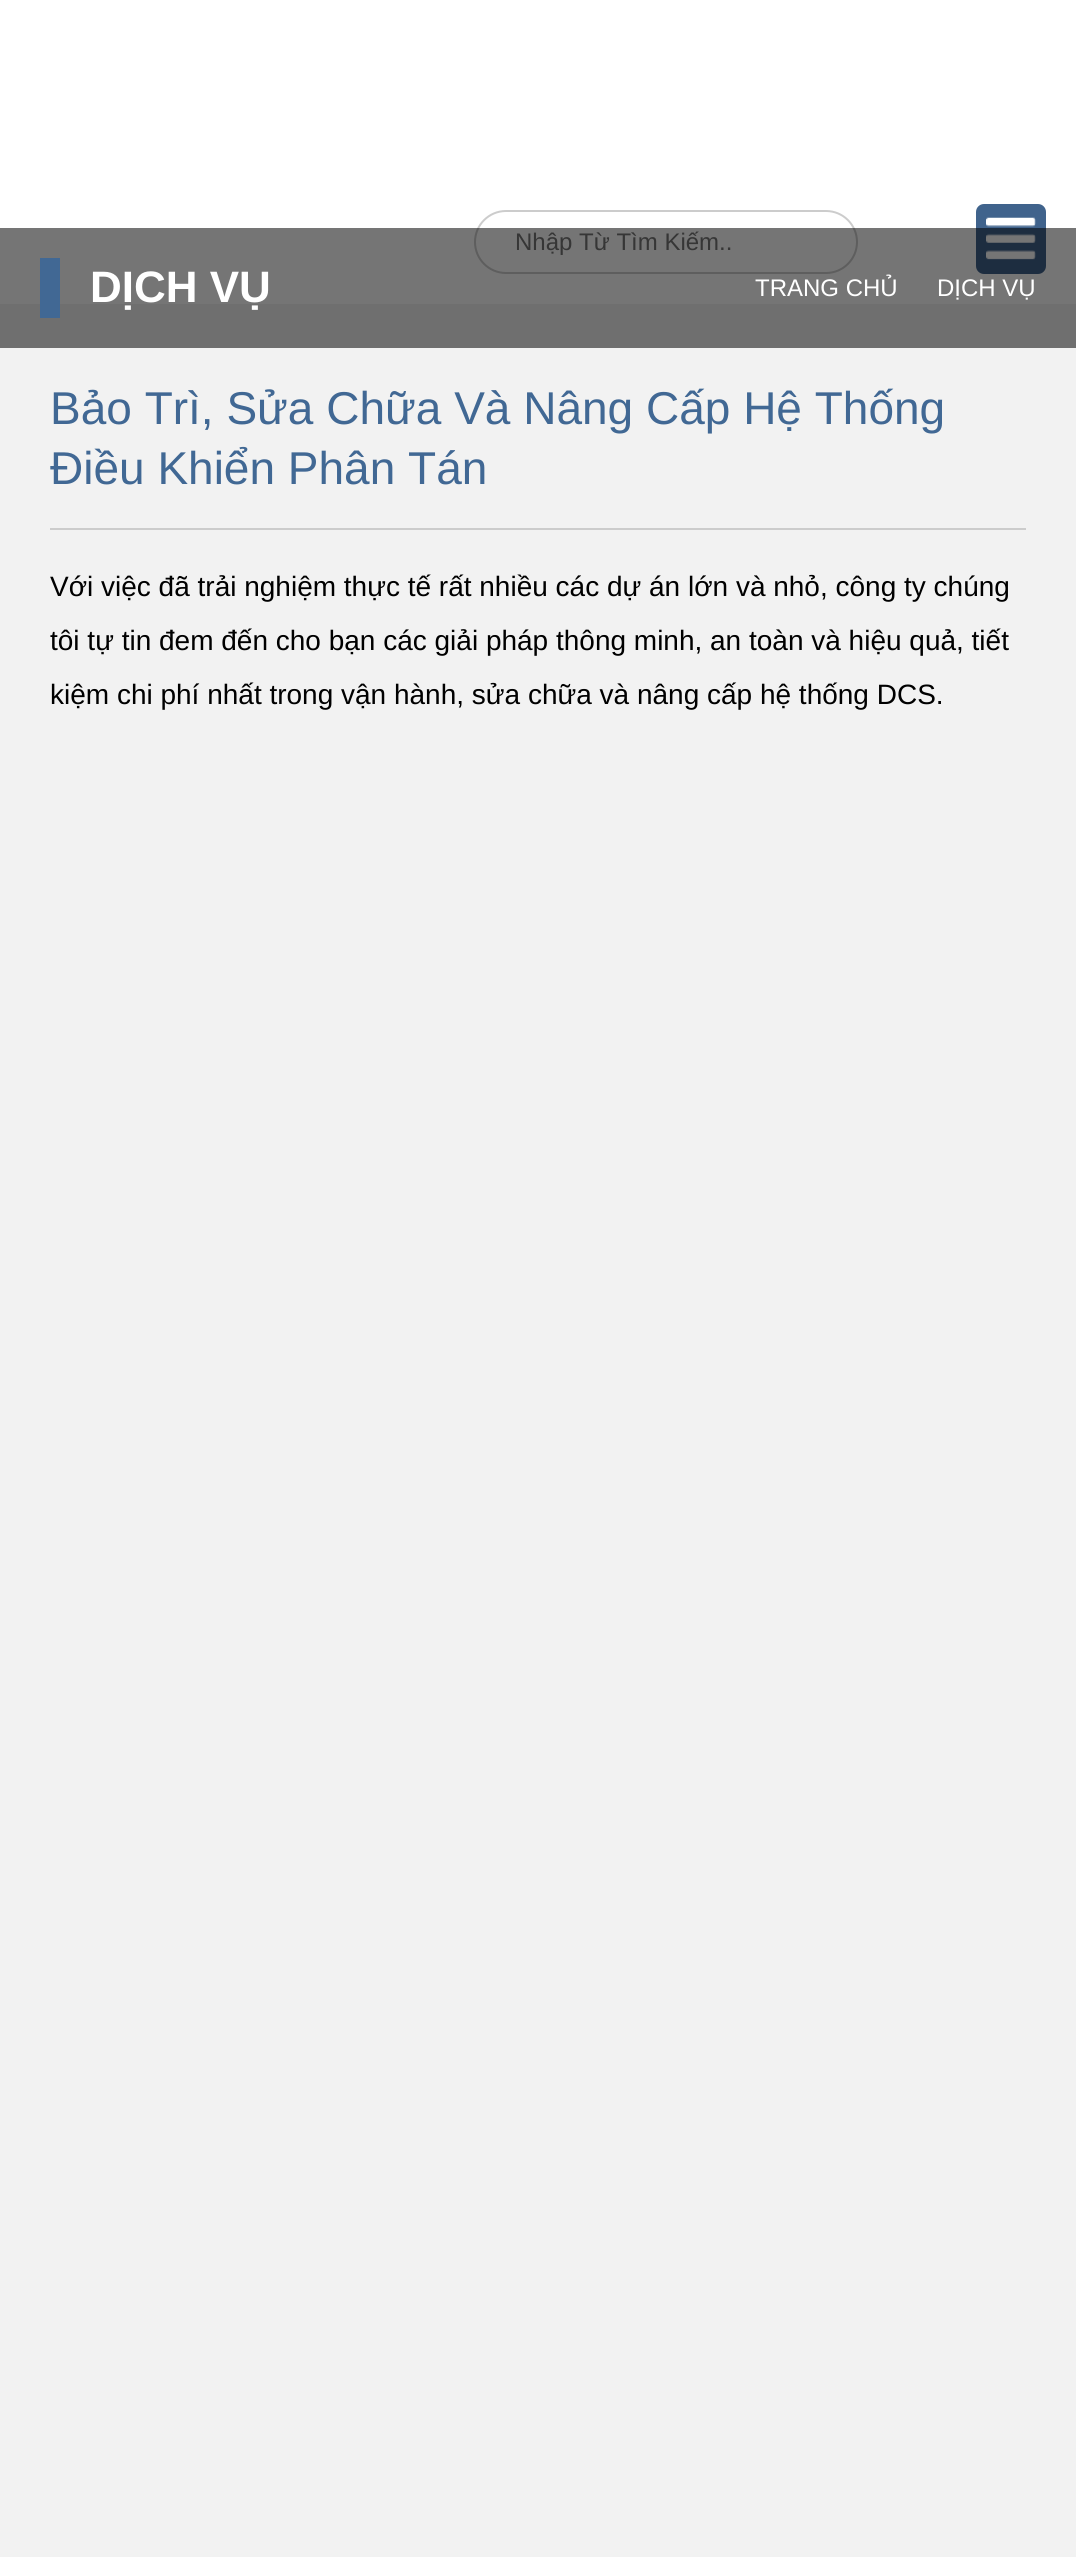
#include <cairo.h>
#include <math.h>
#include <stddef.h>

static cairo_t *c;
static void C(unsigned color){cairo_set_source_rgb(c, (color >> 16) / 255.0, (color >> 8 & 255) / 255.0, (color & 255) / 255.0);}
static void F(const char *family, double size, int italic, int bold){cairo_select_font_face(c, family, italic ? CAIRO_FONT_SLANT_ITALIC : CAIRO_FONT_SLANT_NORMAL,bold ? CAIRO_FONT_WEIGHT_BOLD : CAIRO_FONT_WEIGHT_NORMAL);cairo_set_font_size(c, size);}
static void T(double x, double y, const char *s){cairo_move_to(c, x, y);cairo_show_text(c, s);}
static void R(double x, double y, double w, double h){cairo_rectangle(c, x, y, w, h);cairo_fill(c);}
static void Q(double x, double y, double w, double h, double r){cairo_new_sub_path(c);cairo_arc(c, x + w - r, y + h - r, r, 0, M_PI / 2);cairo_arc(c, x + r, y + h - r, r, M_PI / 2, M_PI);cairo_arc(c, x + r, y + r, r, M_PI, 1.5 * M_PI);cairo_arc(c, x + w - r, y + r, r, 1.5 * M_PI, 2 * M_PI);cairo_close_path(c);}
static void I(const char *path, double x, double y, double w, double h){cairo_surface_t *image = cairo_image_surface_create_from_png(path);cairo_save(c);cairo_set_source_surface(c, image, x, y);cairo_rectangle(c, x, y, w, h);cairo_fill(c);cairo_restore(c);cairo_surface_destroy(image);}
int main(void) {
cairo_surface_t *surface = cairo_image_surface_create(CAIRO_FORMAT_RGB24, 1076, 2557);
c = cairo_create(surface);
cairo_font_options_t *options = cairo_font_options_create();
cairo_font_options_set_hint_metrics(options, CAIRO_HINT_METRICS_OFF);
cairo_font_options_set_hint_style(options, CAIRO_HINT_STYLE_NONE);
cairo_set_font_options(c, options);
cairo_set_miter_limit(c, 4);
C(0xf2f2f2);
cairo_paint(c);
C(0xffffff);
R(0,0,1076,304);
Q(475,211,382,62,31);
C(0xcccccc);
cairo_stroke(c);
F("Liberation Sans",24,0,0);
C(0x757575);
T(515,250,"Nhập Từ Tìm Kiếm..");
C(0x40638c);
Q(976,204,70,70,8);
cairo_fill(c);
I("1.png",986,217,50,43);
cairo_set_source_rgba(c,0,0,0,0.54);
R(0,228,1076,120);
C(0x416894);
R(40,258,20,60);
F("Liberation Sans",44,0,1);
C(0xffffff);
T(90,302,"DỊCH VỤ");
F("Liberation Sans",24,0,0);
T(755,296,"TRANG CHỦ");
T(937,296,"DỊCH VỤ");
C(0xcccccc);
R(50,528,976,2);
F("Liberation Sans",46,0,0);
C(0x416894);
T(50,424,"Bảo Trì, Sửa Chữa Và Nâng Cấp Hệ Thống");
T(50,484,"Điều Khiển Phân Tán");
F("Liberation Sans",28,0,0);
C(0x000000);
T(50,596,"Với việc đã trải nghiệm thực tế rất nhiều các dự án lớn và nhỏ, công ty chúng");
T(50,650,"tôi tự tin đem đến cho bạn các giải pháp thông minh, an toàn và hiệu quả, tiết");
T(50,704,"kiệm chi phí nhất trong vận hành, sửa chữa và nâng cấp hệ thống DCS.");
cairo_surface_write_to_png(surface, "o.png");
cairo_font_options_destroy(options);
cairo_destroy(c);
cairo_surface_destroy(surface);
return 0;
}
